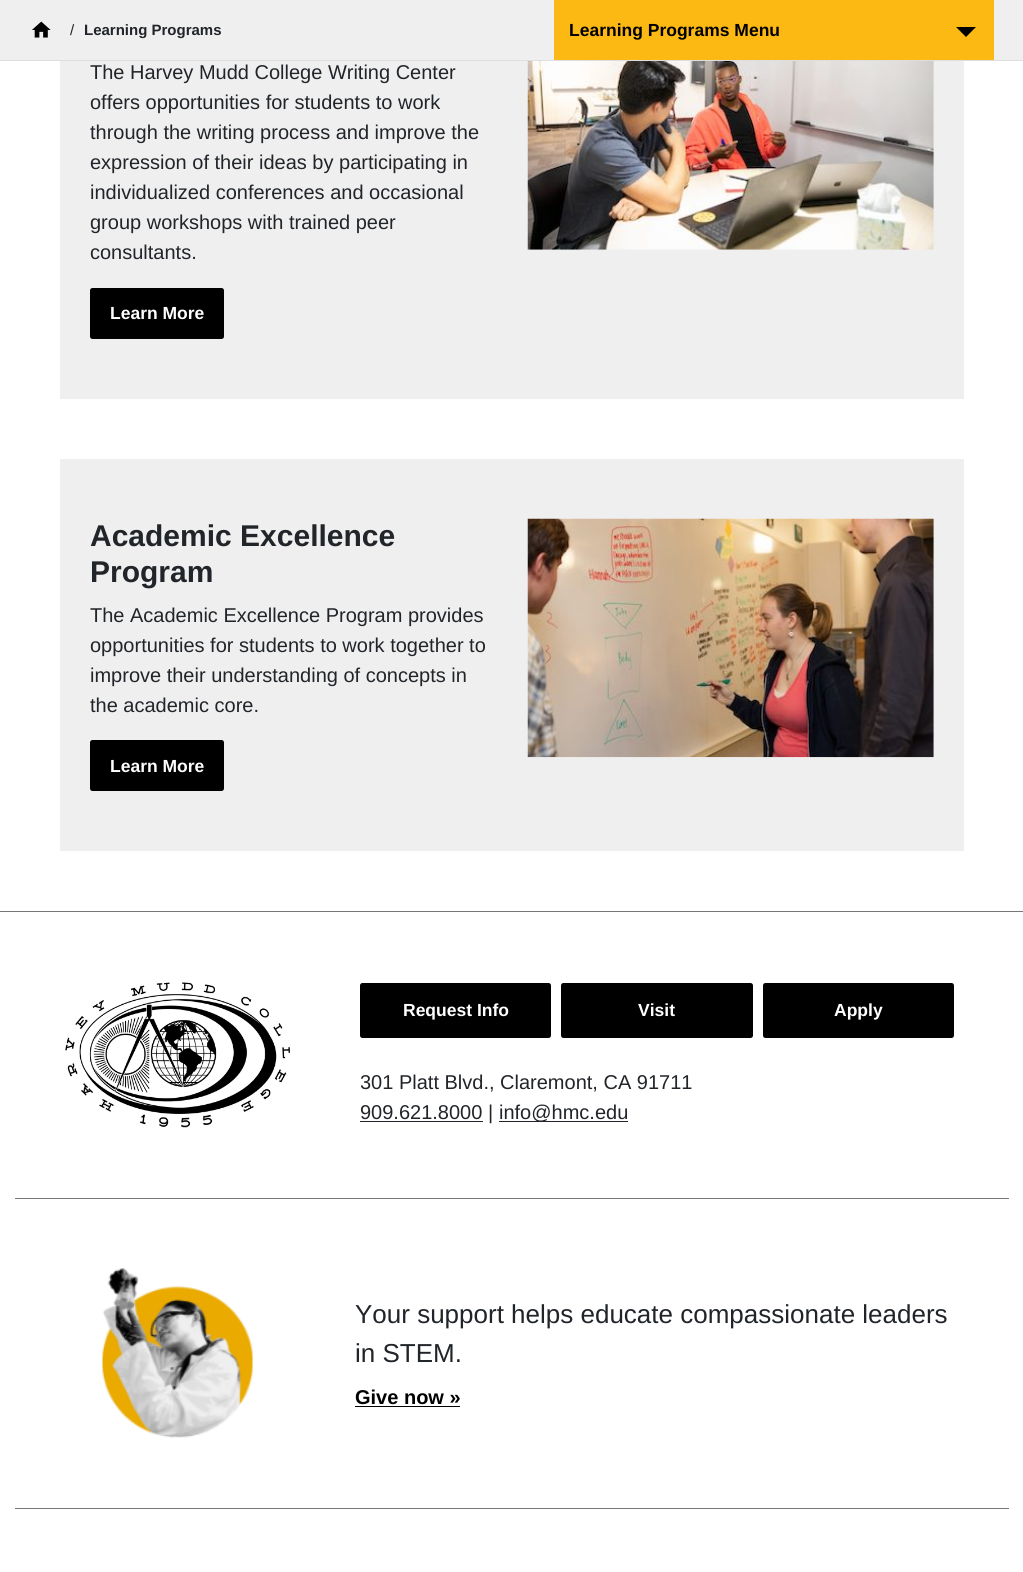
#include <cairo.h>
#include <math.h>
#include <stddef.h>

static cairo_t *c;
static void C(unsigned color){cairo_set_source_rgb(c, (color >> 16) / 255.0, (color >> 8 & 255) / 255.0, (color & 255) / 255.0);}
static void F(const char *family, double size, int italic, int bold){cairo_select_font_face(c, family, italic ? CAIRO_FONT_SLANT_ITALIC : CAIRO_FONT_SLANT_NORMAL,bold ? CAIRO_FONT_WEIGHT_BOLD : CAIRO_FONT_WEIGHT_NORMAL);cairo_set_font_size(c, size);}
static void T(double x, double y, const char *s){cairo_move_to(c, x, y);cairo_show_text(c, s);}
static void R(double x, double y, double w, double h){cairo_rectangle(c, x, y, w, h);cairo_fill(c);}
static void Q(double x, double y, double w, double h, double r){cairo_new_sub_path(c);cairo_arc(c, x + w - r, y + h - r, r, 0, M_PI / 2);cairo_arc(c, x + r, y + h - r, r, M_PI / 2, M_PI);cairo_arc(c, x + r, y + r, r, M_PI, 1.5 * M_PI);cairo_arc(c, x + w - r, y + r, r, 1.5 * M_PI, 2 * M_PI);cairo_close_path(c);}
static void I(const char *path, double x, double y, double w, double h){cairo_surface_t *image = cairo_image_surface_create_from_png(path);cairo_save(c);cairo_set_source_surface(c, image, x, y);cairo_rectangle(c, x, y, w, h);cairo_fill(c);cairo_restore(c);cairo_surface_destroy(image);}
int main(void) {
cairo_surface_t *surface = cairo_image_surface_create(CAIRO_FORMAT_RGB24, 1023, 1572);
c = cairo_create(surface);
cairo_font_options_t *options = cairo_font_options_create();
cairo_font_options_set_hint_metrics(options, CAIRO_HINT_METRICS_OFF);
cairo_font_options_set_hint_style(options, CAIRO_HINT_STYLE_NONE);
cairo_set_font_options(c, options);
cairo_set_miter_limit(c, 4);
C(0xffffff);
cairo_paint(c);
C(0xefefef);
R(0,0,1023,60);
C(0xdedede);
R(0,60,1023,1);
I("1.png",32,21,19,17);
F("Liberation Sans",15,0,0);
C(0x212529);
T(70,35,"/");
F("Liberation Sans",15,0,1);
T(84,35,"Learning Programs");
C(0xfdb913);
R(554,0,440,60);
C(0x000000);
cairo_new_path(c);
cairo_move_to(c,966,37);
cairo_line_to(c,956,27);
cairo_line_to(c,976,27);
cairo_close_path(c);
cairo_fill(c);
F("Liberation Sans",17.5,0,1);
T(569,36,"Learning Programs Menu");
C(0xefefef);
R(60,61,904,338);
F("Liberation Sans",20,0,0);
C(0x212529);
T(90,79,"The Harvey Mudd College Writing Center");
T(90,109,"offers opportunities for students to work");
T(90,139,"through the writing process and improve the");
T(90,169,"expression of their ideas by participating in");
T(90,199,"individualized conferences and occasional");
T(90,229,"group workshops with trained peer");
T(90,259,"consultants.");
C(0x000000);
Q(90,288,134,51,2.5);
cairo_fill(c);
F("Liberation Sans",17.5,0,1);
C(0xffffff);
T(110,319,"Learn More");
I("2.png",527,61,407,189);
C(0xefefef);
R(60,459,904,392);
F("Liberation Sans",30,0,1);
C(0x212529);
T(90,546,"Academic Excellence");
T(90,582,"Program");
F("Liberation Sans",20,0,0);
T(90,622,"The Academic Excellence Program provides");
T(90,652,"opportunities for students to work together to");
T(90,682,"improve their understanding of concepts in");
T(90,712,"the academic core.");
C(0x000000);
Q(90,740,134,51,2.5);
cairo_fill(c);
F("Liberation Sans",17.5,0,1);
C(0xffffff);
T(110,772,"Learn More");
I("3.png",527,518,407,240);
C(0x777777);
R(0,911,1023,1);
I("4.png",65,982,225,146);
C(0x000000);
Q(360,983,191,55,2.5);
cairo_fill(c);
C(0xffffff);
T(403,1016,"Request Info");
C(0x000000);
Q(561,983,192,55,2.5);
cairo_fill(c);
C(0xffffff);
T(638,1016,"Visit");
C(0x000000);
Q(763,983,191,55,2.5);
cairo_fill(c);
C(0xffffff);
T(834,1016,"Apply");
F("Liberation Sans",20,0,0);
C(0x212529);
T(360,1089,"301 Platt Blvd., Claremont, CA 91711");
R(360,1121,123,1);
T(360,1119,"909.621.8000 |");
R(499,1121,129,1);
T(499,1119,"info@hmc.edu");
C(0x777777);
R(15,1198,994,1);
I("5.png",102,1268,151,170);
F("Liberation Sans",26,0,0);
C(0x212529);
T(355,1323,"Your support helps educate compassionate leaders");
T(355,1362,"in STEM.");
F("Liberation Sans",20,0,1);
C(0x000000);
T(355,1404,"Give now »");
R(355,1406,105,1);
C(0x777777);
R(15,1508,994,1);
cairo_surface_write_to_png(surface, "o.png");
cairo_font_options_destroy(options);
cairo_destroy(c);
cairo_surface_destroy(surface);
return 0;
}
